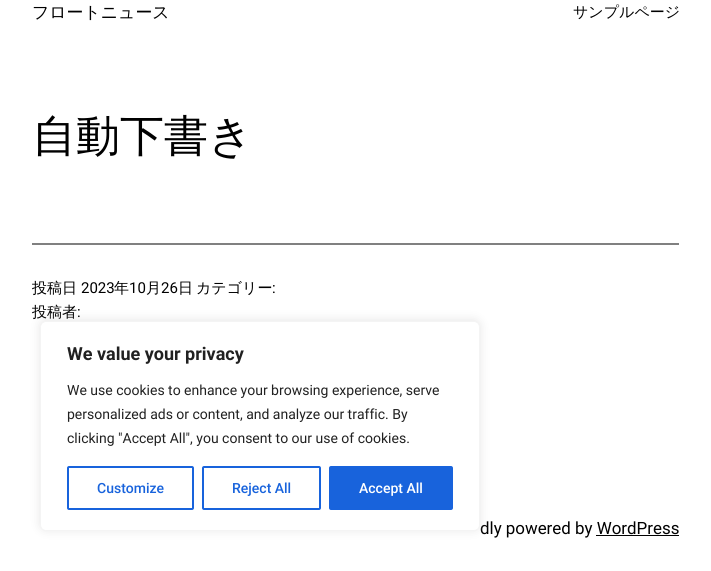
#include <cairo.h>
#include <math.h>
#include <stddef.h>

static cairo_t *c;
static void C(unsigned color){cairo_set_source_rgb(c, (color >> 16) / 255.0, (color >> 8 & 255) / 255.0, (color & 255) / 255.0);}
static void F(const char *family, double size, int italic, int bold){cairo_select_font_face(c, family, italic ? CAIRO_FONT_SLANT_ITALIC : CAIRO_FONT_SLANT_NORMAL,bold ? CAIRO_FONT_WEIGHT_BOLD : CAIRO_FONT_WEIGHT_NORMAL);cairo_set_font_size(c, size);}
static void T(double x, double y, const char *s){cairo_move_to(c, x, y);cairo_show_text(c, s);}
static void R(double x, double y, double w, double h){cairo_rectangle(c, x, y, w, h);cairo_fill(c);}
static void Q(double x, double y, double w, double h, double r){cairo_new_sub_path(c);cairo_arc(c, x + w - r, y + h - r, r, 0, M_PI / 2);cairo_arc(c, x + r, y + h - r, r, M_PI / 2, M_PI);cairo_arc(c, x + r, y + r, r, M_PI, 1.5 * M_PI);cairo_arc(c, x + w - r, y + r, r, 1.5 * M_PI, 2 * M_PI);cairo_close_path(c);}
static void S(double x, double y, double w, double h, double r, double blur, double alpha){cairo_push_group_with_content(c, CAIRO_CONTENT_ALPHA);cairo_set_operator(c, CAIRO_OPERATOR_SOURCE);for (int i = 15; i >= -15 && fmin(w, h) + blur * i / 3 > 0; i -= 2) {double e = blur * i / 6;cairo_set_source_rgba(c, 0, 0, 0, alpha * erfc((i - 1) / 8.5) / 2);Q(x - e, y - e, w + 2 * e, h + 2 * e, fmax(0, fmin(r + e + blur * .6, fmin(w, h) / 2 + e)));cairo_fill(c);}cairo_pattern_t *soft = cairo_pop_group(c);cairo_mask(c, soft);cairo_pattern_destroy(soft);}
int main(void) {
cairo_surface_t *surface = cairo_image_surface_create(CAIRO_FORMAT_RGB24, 711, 571);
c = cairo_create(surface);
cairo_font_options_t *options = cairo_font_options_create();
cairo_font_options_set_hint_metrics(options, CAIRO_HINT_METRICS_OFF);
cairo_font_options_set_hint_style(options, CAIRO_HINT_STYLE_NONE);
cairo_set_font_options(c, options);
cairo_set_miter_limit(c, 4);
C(0xffffff);
cairo_paint(c);
F("WenQuanYi Zen Hei Medium",16.9,0,0);
C(0x000000);
T(32,18,"フロートニュース");
F("WenQuanYi Zen Hei Medium",15,0,0);
T(573,17,"サンプルページ");
F("WenQuanYi Zen Hei Medium",44,0,0);
T(32,151,"自動下書き");
C(0x808080);
R(32,243,647,2);
F("WenQuanYi Zen Hei Medium",15,0,0);
C(0x000000);
T(32,293,"投稿日");
F("Roboto",15,0,0);
T(81,293,"2023");
F("WenQuanYi Zen Hei Medium",15,0,0);
T(114,293,"年");
F("Roboto",15,0,0);
T(129,293,"10");
F("WenQuanYi Zen Hei Medium",15,0,0);
T(146,293,"月");
F("Roboto",15,0,0);
T(161,293,"26");
F("WenQuanYi Zen Hei Medium",15,0,0);
T(178,293,"日");
T(196,293,"カテゴリー");
F("Roboto",15,0,0);
T(272,293,":");
F("WenQuanYi Zen Hei Medium",15,0,0);
T(32,317,"投稿者");
F("Roboto",15,0,0);
T(77,317,":");
F("Roboto",16.9,0,0);
T(480,534,"dly powered by WordPress");
R(596,535,83,1);
C(0xacabab);
S(40,320,440,210,6,5,.3);
C(0xffffff);
Q(40.5,321.5,439,209,5.5);
cairo_fill_preserve(c);
C(0xf4f4f4);
cairo_set_line_width(c,1);
cairo_stroke(c);
F("Roboto",18,0,1);
C(0x212121);
T(67,360,"We value your privacy");
F("Roboto",14,0,0);
T(67,395,"We use cookies to enhance your browsing experience, serve");
T(67,419,"personalized ads or content, and analyze our traffic. By");
T(67,443,"clicking \"Accept All\", you consent to our use of cookies.");
Q(68,467,125,42,1);
C(0x1863dc);
cairo_set_line_width(c,2);
cairo_stroke(c);
F("Roboto Medium",14,0,0);
T(97,493,"Customize");
Q(203,467,117,42,1);
cairo_stroke(c);
T(232,493,"Reject All");
Q(330,467,122,42,1);
cairo_fill_preserve(c);
cairo_stroke(c);
C(0xffffff);
T(359,493,"Accept All");
cairo_surface_write_to_png(surface, "o.png");
cairo_font_options_destroy(options);
cairo_destroy(c);
cairo_surface_destroy(surface);
return 0;
}
